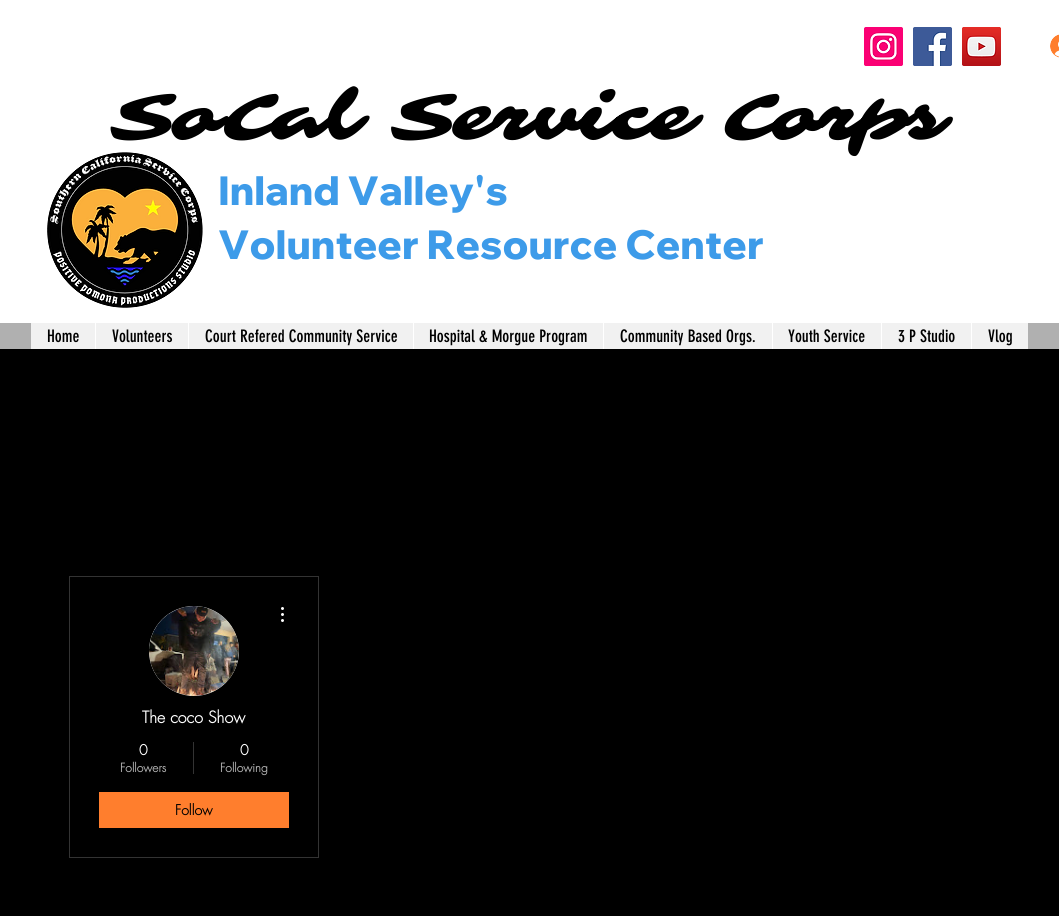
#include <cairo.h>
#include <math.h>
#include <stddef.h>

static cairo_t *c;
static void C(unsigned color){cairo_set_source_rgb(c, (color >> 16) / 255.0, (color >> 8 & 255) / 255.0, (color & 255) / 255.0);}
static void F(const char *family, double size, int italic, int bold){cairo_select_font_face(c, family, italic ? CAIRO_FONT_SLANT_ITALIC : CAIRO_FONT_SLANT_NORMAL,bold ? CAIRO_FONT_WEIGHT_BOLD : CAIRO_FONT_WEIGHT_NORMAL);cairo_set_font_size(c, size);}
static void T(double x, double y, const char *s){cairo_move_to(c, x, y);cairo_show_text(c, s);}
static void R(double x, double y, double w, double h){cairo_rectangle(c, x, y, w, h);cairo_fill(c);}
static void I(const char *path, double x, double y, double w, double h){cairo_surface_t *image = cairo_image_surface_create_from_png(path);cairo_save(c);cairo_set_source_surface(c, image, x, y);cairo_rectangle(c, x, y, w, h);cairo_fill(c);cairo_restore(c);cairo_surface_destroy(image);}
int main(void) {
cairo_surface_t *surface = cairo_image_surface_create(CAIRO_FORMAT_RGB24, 1059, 916);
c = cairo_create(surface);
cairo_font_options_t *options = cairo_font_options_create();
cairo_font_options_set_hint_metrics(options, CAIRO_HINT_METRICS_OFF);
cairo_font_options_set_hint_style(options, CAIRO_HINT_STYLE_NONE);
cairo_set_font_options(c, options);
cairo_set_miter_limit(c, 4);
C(0x000000);
cairo_paint(c);
C(0xffffff);
R(0,0,1059,323);
I("1.png",864,27,39,39);
I("2.png",913,27,39,39);
I("3.png",962,27,39,39);
I("4.png",1050,34,9,24);
F("Sarina",68,0,0);
C(0x000000);
T(110,139,"SoCal Service Corps");
I("5.png",47,152,156,156);
F("Wix Madefor Display ExtraBold",40,0,0);
C(0x3d9be9);
T(218,205,"Inland Valley's");
T(218,259,"Volunteer Resource Center");
C(0xb0b0b0);
R(0,323,1059,26);
C(0xf1f1f1);
R(31,323,997,26);
F("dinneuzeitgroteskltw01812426",17,0,0);
C(0x000000);
T(47,342,"Home");
C(0xffffff);
R(95,323,1,26);
C(0x000000);
T(112,342,"Volunteers");
C(0xffffff);
R(188,323,1,26);
C(0x000000);
T(205,342,"Court Refered Community Service");
C(0xffffff);
R(413,323,1,26);
C(0x000000);
T(429,342,"Hospital & Morgue Program");
C(0xffffff);
R(603,323,1,26);
C(0x000000);
T(620,342,"Community Based Orgs.");
C(0xffffff);
R(772,323,1,26);
C(0x000000);
T(788,342,"Youth Service");
C(0xffffff);
R(881,323,1,26);
C(0x000000);
T(898,342,"3 P Studio");
C(0xffffff);
R(971,323,1,26);
C(0x000000);
T(988,342,"Vlog");
cairo_rectangle(c,69.5,576.5,249,281);
C(0x333333);
cairo_set_line_width(c,1);
cairo_stroke(c);
C(0xd8d8d8);
cairo_arc(c,194,651,45,0,2 * M_PI);
cairo_fill(c);
I("6.png",149,606,90,90);
I("7.png",281,607,3,15);
F("futura",16,0,1);
C(0xffffff);
T(142,723,"The coco Show");
F("futura",14,0,1);
T(139,755,"0");
F("futura",12,0,1);
C(0xb3b3b3);
T(120,772,"Followers");
C(0x333333);
R(193,742,1,32);
F("futura",14,0,1);
C(0xffffff);
T(240,755,"0");
F("futura",12,0,1);
C(0xb3b3b3);
T(220,772,"Following");
C(0xff7e2d);
R(99,792,190,36);
F("futura",14,0,1);
C(0x000000);
T(175,815,"Follow");
cairo_surface_write_to_png(surface, "o.png");
cairo_font_options_destroy(options);
cairo_destroy(c);
cairo_surface_destroy(surface);
return 0;
}
